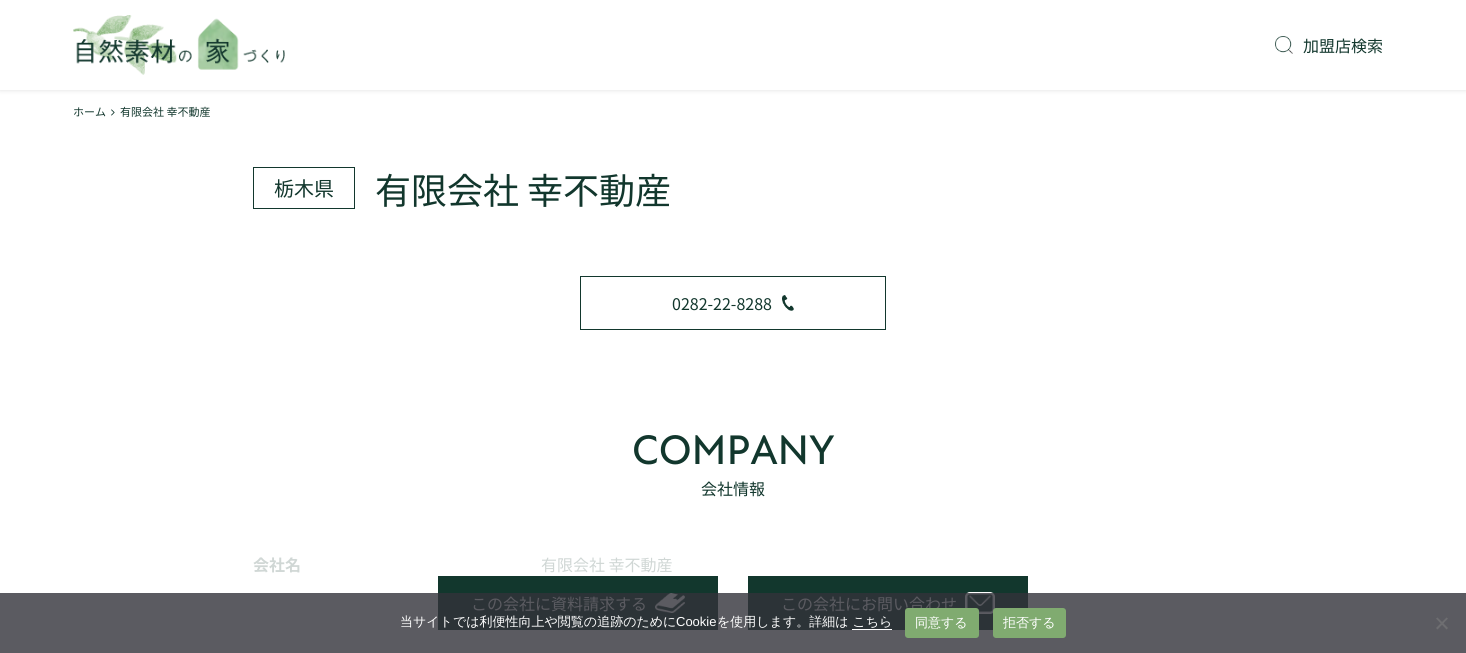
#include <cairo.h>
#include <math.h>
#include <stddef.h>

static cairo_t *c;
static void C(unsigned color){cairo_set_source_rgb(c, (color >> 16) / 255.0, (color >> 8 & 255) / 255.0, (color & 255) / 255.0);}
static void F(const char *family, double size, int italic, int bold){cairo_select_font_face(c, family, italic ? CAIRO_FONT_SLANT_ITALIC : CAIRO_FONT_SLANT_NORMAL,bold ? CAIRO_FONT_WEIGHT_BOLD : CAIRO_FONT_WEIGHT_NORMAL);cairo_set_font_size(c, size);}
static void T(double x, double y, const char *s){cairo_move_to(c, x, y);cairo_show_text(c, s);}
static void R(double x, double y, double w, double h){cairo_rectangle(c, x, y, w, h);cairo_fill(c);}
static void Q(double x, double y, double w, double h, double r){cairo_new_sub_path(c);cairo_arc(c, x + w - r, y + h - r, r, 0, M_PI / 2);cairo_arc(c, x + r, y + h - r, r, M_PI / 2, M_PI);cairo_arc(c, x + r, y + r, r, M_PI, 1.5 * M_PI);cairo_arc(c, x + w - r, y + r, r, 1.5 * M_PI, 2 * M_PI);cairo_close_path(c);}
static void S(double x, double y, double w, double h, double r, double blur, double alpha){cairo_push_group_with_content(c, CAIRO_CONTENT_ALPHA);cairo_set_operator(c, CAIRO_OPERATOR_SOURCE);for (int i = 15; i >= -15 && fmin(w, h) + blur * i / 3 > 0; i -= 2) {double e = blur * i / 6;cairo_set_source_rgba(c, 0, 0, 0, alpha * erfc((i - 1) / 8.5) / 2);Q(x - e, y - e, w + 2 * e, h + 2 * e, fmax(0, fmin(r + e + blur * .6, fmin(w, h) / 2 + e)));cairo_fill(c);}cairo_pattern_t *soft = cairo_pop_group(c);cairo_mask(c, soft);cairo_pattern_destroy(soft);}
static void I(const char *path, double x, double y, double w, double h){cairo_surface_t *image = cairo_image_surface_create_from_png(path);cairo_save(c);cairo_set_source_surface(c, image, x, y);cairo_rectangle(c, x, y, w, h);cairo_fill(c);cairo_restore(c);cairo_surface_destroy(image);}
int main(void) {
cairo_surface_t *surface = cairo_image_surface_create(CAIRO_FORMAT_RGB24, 1466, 653);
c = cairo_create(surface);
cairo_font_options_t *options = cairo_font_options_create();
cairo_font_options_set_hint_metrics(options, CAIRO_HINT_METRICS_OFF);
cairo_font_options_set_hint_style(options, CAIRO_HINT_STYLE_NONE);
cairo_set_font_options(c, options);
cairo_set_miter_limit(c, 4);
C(0xffffff);
cairo_paint(c);
C(0x5b5b61);
R(0,593,1466,60);
cairo_save(c);
cairo_rectangle(c,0,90,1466,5);
cairo_clip(c);
C(0xdedede);
S(0,0,1466,90,0,2.5,1);
cairo_restore(c);
I("1.png",73,15,212,60);
I("2.png",1275,36,18,18);
F("Noto Sans JP",16,0,0);
C(0x12372d);
T(1303,52,"加盟店検索");
F("Noto Sans JP",11,0,0);
T(73,116,"ホーム");
I("3.png",111,109,4,7);
T(120,116,"有限会社 幸不動産");
cairo_rectangle(c,253.5,167.5,101,41);
cairo_set_line_width(c,1);
cairo_stroke(c);
F("Noto Sans JP",20,0,0);
T(274,196,"栃木県");
F("Noto Sans JP",36,0,0);
T(375,204,"有限会社 幸不動産");
cairo_rectangle(c,580.5,276.5,305,53);
cairo_stroke(c);
F("Noto Sans JP",16,0,0);
T(672,310,"0282-22-8288");
I("4.png",782,295,12,16);
F("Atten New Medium",42,0,0);
T(632,464,"COMPANY");
F("Noto Sans JP",16,0,0);
T(701,495,"会社情報");
F("Noto Sans JP",16,0,1);
C(0xd0d7d5);
T(253,571,"会社名");
F("Noto Sans JP",16,0,0);
T(541,571,"有限会社 幸不動産");
C(0x12372d);
R(438,576,280,17);
C(0x2c3337);
R(438,593,280,37);
C(0x5b5b61);
T(471,610,"この会社に資料請求する");
I("5.png",655,593,30,20);
C(0x12372d);
R(748,576,280,17);
C(0x2c3337);
R(748,593,280,37);
C(0x5b5b61);
T(781,610,"この会社にお問い合わせ");
I("6.png",965,592,30,22);
F("WenQuanYi Zen Hei Medium",13,0,0);
C(0xffffff);
T(400,626,"当サイトでは利便性向上や閲覧の追跡のために");
F("Liberation Sans",13,0,0);
T(676,626,"Cookie");
F("WenQuanYi Zen Hei Medium",13,0,0);
T(717,626,"を使用します。詳細は こちら");
R(852,629,40,1);
C(0x80ab70);
Q(905,608,74,30,3);
cairo_fill(c);
C(0xffffff);
T(915,627,"同意する");
C(0x80ab70);
Q(993,608,73,30,3);
cairo_fill(c);
C(0xffffff);
T(1003,627,"拒否する");
C(0x6e6e71);
cairo_new_path(c);
cairo_move_to(c,1446.5,617.5);
cairo_line_to(c,1448,618.5);
cairo_line_to(c,1437.5,629.5);
cairo_line_to(c,1436,628);
cairo_close_path(c);
cairo_fill(c);
cairo_new_path(c);
cairo_move_to(c,1436,618.5);
cairo_line_to(c,1437.5,617.5);
cairo_line_to(c,1448,628);
cairo_line_to(c,1446.5,629.5);
cairo_close_path(c);
cairo_fill(c);
cairo_surface_write_to_png(surface, "o.png");
cairo_font_options_destroy(options);
cairo_destroy(c);
cairo_surface_destroy(surface);
return 0;
}
